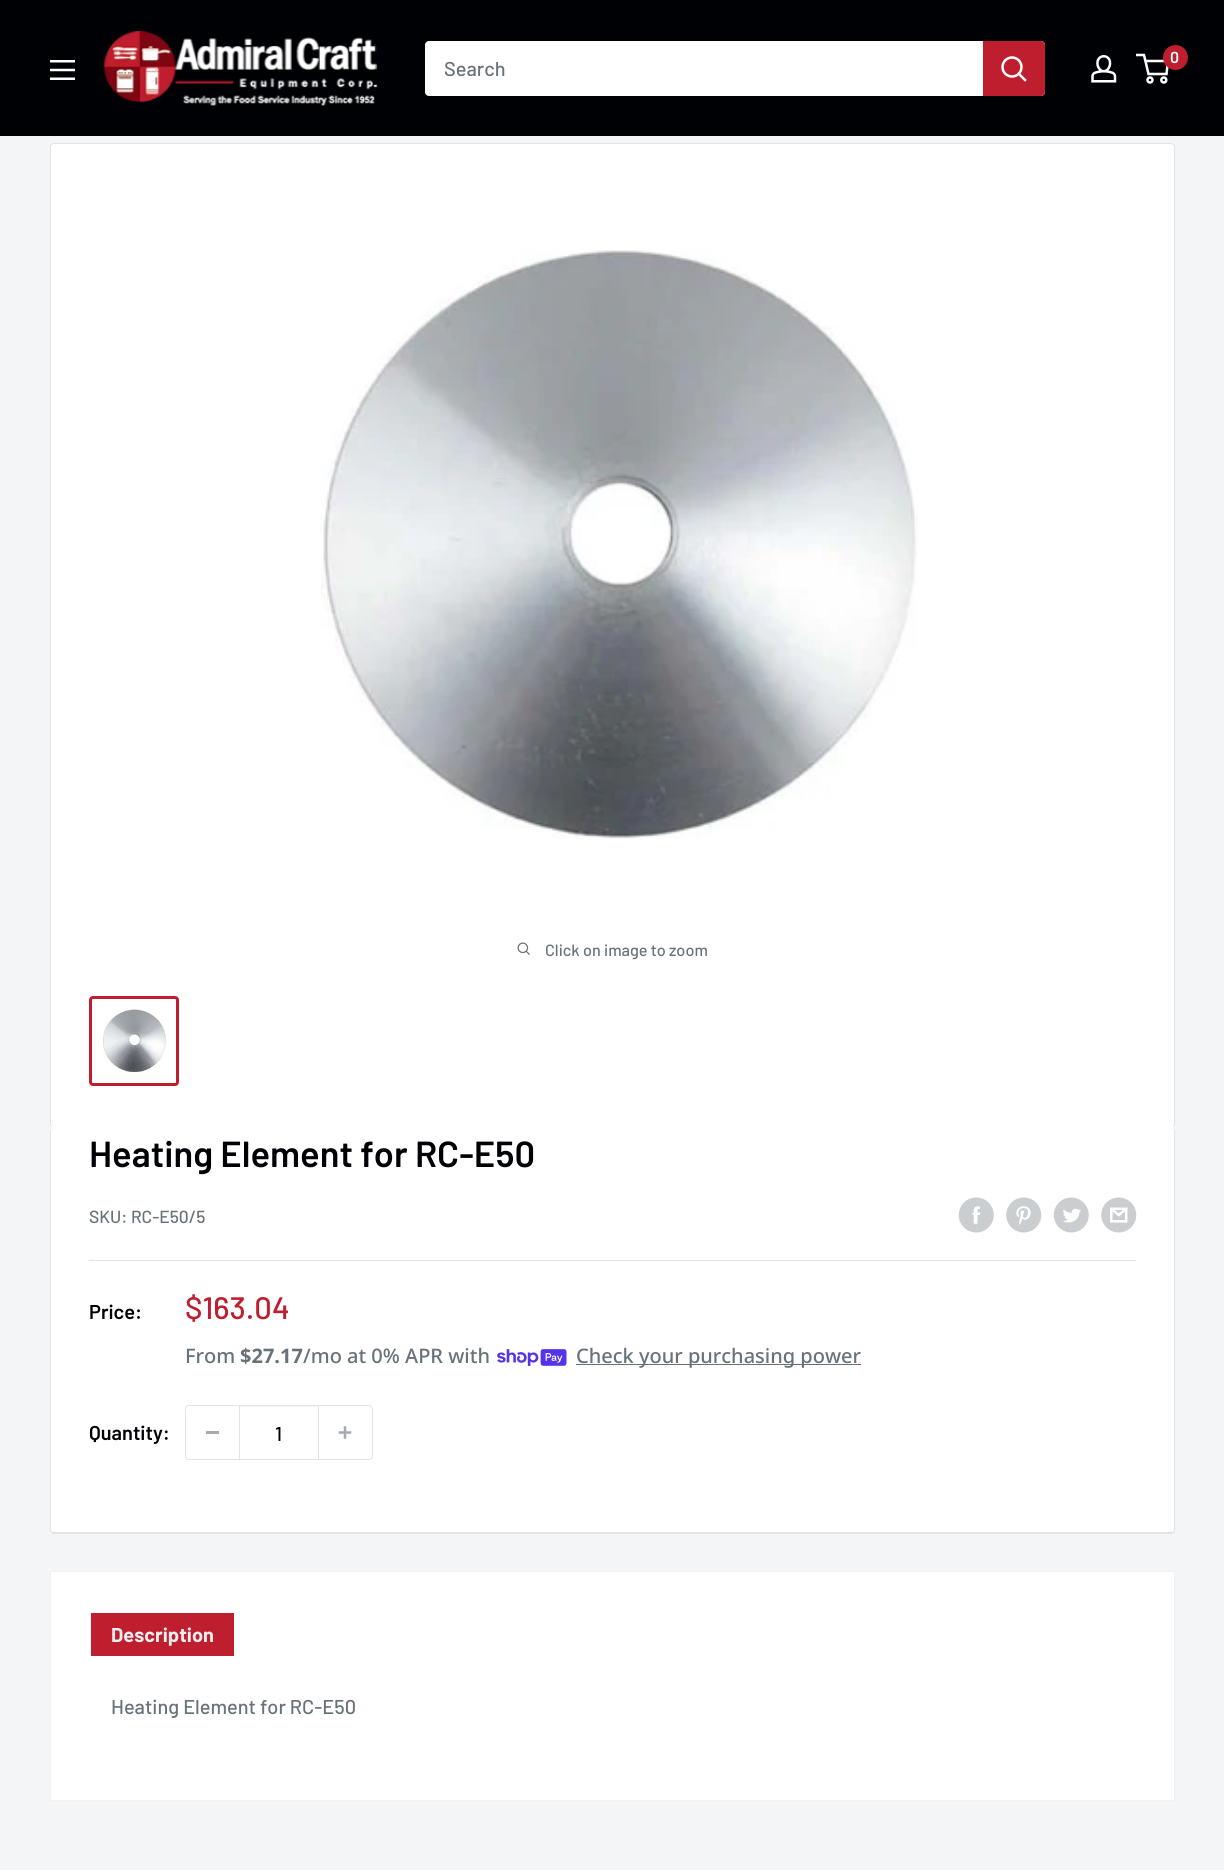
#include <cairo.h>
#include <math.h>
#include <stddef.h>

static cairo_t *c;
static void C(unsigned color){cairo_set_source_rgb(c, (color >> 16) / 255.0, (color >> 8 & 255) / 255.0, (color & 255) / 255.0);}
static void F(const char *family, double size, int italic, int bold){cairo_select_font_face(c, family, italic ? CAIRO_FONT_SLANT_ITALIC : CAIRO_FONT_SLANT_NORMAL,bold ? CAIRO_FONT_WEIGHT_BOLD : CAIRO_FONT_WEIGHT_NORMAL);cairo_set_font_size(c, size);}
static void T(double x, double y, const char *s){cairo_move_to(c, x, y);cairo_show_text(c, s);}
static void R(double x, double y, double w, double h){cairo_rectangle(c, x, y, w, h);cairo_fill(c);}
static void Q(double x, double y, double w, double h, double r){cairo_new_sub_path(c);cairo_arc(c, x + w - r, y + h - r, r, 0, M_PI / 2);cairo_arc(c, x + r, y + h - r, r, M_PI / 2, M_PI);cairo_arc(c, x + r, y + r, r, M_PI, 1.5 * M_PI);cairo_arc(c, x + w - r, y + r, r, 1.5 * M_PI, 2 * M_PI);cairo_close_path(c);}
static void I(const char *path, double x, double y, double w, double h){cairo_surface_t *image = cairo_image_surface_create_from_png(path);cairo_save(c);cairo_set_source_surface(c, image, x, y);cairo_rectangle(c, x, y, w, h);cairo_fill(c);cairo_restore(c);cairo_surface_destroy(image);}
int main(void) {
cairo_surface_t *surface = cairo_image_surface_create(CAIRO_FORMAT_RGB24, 1224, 1870);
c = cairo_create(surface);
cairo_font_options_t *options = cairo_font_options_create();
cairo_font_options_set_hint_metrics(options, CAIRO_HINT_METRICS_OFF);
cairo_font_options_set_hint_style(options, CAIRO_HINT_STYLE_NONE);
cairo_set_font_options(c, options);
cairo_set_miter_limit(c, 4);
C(0xf3f5f6);
cairo_paint(c);
C(0x000105);
R(0,0,1224,136);
I("1.png",104,30,274,76);
I("2.png",1091,55,26,28);
cairo_arc(c,1150,80,2.5,0,2 * M_PI);
C(0xffffff);
cairo_set_line_width(c,2.5);
cairo_stroke(c);
cairo_arc(c,1163.8,80,2.5,0,2 * M_PI);
cairo_stroke(c);
cairo_new_path(c);
cairo_move_to(c,1145.5,61);
cairo_line_to(c,1168,61);
cairo_line_to(c,1166.5,74);
cairo_line_to(c,1148.5,74);
cairo_line_to(c,1144,55);
cairo_line_to(c,1136,55);
cairo_stroke(c);
C(0xbf1e2e);
cairo_arc(c,1175.5,57.5,12.5,0,2 * M_PI);
cairo_fill(c);
F("Barlow SemiBold",16,0,0);
C(0xffffff);
T(1170,63,"0");
I("3.png",50,60,25,20);
Q(425,41,620,55,4);
cairo_fill(c);
F("Barlow Medium",20,0,0);
C(0x677279);
T(444,76,"Search");
C(0xbf1e2e);
cairo_new_path(c);
cairo_move_to(c,983,41);
cairo_line_to(c,1041,41);
cairo_curve_to(c,1043,41,1045,43,1045,45);
cairo_line_to(c,1045,92);
cairo_curve_to(c,1045,94,1043,96,1041,96);
cairo_line_to(c,983,96);
cairo_close_path(c);
cairo_fill(c);
cairo_new_path(c);
cairo_move_to(c,1025,80);
cairo_line_to(c,1019,74);
C(0xffffff);
cairo_set_line_cap(c,CAIRO_LINE_CAP_SQUARE);
cairo_stroke(c);
cairo_arc(c,1012,67,9.5,0,2 * M_PI);
cairo_set_line_cap(c,CAIRO_LINE_CAP_BUTT);
cairo_stroke(c);
Q(50.5,143.5,1124,984,3.5);
cairo_fill_preserve(c);
C(0xe1e3e4);
cairo_set_line_width(c,1);
cairo_stroke(c);
I("4.png",320,250,598,589);
I("5.png",517,942,13,13);
F("Barlow Medium",16.25,0,0);
C(0x677279);
T(545,956,"Click on image to zoom");
Q(90.5,997.5,87,87,2.5);
C(0xbf1e2e);
cairo_set_line_width(c,3);
cairo_stroke(c);
I("6.png",103,1008,64,64);
C(0xffffff);
cairo_new_path(c);
cairo_move_to(c,54,1126);
cairo_curve_to(c,51,1126,50,1129,50,1131);
cairo_curve_to(c,50,1129,52,1128,54,1128);
cairo_line_to(c,1171,1128);
cairo_curve_to(c,1173,1128,1175,1129,1175,1131);
cairo_curve_to(c,1175,1129,1174,1126,1171,1126);
cairo_close_path(c);
cairo_fill(c);
Q(50,1128,1125,406,4);
cairo_fill(c);
C(0xe1e3e4);
cairo_set_fill_rule(c,CAIRO_FILL_RULE_EVEN_ODD);
cairo_new_path(c);
cairo_move_to(c,54,1128);
cairo_line_to(c,1171,1128);
cairo_curve_to(c,1173,1128,1175,1129,1175,1131);
cairo_line_to(c,1175,1530);
cairo_curve_to(c,1175,1532,1173,1534,1171,1534);
cairo_line_to(c,54,1534);
cairo_curve_to(c,52,1534,50,1532,50,1530);
cairo_line_to(c,50,1131);
cairo_curve_to(c,50,1129,52,1128,54,1128);
cairo_close_path(c);
cairo_move_to(c,54,1128);
cairo_line_to(c,1171,1128);
cairo_curve_to(c,1173,1128,1174,1129,1174,1131);
cairo_line_to(c,1174,1530);
cairo_curve_to(c,1174,1531,1173,1532,1171,1532);
cairo_line_to(c,54,1532);
cairo_curve_to(c,52,1532,51,1531,51,1530);
cairo_line_to(c,51,1131);
cairo_curve_to(c,51,1129,52,1128,54,1128);
cairo_close_path(c);
cairo_fill(c);
F("Barlow SemiBold",36.25,0,0);
C(0x000105);
T(89,1167,"Heating Element for RC-E50");
F("Barlow Medium",17.5,0,0);
C(0x677279);
T(89,1223,"SKU: RC-E50/5");
I("7.png",958,1197,36,36);
I("8.png",1006,1197,36,36);
I("9.png",1053,1197,36,36);
I("10.png",1101,1197,36,36);
C(0xe1e3e4);
R(89,1260,1047,1);
F("Barlow SemiBold",20,0,0);
C(0x000105);
T(89,1319,"Price:");
F("Barlow Medium",31,0,0);
C(0xbf1e2e);
T(185,1319,"$163.04");
F("Noto Sans Medium",20,0,0);
C(0x677279);
T(185,1363,"From");
F("Noto Sans",20,0,1);
T(240,1363,"$27.17");
F("Noto Sans Medium",20,0,0);
T(303,1363,"/mo at 0% APR with");
I("11.png",497,1349,70,17);
R(576,1364,285,1);
T(576,1363,"Check your purchasing power");
F("Barlow SemiBold",20,0,0);
C(0x000105);
T(89,1440,"Quantity:");
Q(185.5,1405.5,187,54,3.5);
C(0xe1e3e4);
cairo_set_line_width(c,1);
cairo_stroke(c);
C(0xa4aaaf);
R(206,1431,13,3);
C(0xf3f4f4);
R(240,1406,78,1);
C(0xe1e3e4);
R(318,1406,1,53);
R(239,1406,1,53);
F("Barlow Medium",20,0,0);
C(0x000105);
T(275,1441,"1");
I("12.png",338,1426,14,13);
C(0xffffff);
cairo_rectangle(c,50.5,1571.5,1124,229);
cairo_fill_preserve(c);
C(0xf1f1f2);
cairo_stroke(c);
C(0xbf1e2e);
R(91,1613,143,43);
F("Barlow",20,0,1);
C(0xeeeeee);
T(111,1642,"Description");
F("Barlow Medium",20,0,0);
C(0x677279);
T(111,1714,"Heating Element for RC-E50");
cairo_surface_write_to_png(surface, "o.png");
cairo_font_options_destroy(options);
cairo_destroy(c);
cairo_surface_destroy(surface);
return 0;
}
